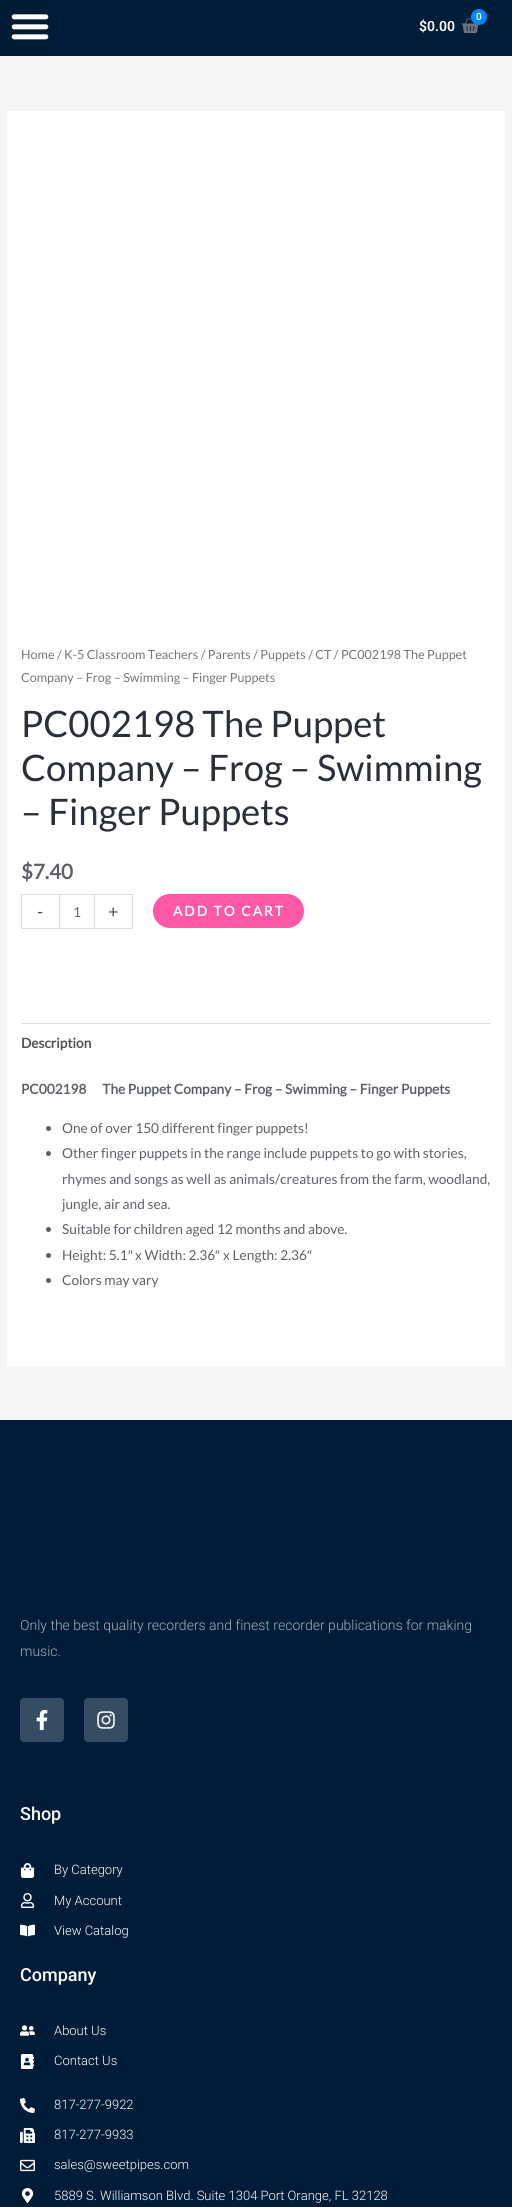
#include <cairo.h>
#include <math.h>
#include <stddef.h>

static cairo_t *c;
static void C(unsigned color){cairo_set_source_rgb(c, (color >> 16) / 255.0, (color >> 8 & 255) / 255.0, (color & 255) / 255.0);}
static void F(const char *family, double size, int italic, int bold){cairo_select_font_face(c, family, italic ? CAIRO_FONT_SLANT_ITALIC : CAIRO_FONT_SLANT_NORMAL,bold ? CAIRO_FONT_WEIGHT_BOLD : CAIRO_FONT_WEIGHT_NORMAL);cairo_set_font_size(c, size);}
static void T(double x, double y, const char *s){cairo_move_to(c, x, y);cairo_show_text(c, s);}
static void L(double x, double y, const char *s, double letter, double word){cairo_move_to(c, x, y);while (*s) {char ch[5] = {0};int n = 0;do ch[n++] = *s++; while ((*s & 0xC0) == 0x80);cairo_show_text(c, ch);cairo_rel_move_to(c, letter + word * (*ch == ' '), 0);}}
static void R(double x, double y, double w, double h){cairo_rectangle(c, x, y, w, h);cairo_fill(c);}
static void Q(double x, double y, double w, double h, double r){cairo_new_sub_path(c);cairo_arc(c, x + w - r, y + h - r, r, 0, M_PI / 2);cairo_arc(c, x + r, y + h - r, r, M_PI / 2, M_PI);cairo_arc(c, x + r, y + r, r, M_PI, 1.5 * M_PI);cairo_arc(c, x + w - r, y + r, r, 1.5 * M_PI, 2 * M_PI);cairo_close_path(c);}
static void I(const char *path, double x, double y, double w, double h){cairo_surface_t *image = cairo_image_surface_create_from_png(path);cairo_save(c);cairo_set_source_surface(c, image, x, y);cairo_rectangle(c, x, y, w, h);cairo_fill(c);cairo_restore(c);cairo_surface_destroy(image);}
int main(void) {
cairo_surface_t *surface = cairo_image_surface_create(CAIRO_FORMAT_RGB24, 512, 2207);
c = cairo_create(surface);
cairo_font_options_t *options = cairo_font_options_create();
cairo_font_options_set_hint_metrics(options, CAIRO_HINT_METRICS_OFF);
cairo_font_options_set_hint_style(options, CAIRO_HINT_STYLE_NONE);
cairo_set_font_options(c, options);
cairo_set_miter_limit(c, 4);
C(0xf5f5f5);
cairo_paint(c);
C(0x001c38);
R(0,0,512,56);
C(0x001b35);
Q(0,-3,60,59,3);
cairo_fill(c);
I("1.png",11,14,38,26);
I("2.png",460,18,20,16);
C(0x0188fc);
cairo_arc(c,479,17,8,0,2 * M_PI);
cairo_fill(c);
F("Roboto SemiBold",10,0,0);
C(0xffffff);
T(476,20,"0");
F("Roboto SemiBold",14,0,0);
T(419,31,"$0.00");
R(7,111,498,1255);
F("Lato",12.6,0,0);
C(0x777777);
T(21,659,"Home / K-5 Classroom Teachers / Parents / Puppets / CT / PC002198 The Puppet");
T(21,682,"Company – Frog – Swimming – Finger Puppets");
F("Lato",36.5,0,0);
C(0x2b2f38);
T(21,737,"PC002198 The Puppet");
T(21,781,"Company – Frog – Swimming");
T(21,825,"– Finger Puppets");
F("Lato",20.5,0,1);
C(0x5d6167);
T(21,879,"$7.40");
C(0xdddddd);
R(21,894,38,1);
R(21,928,38,1);
R(21,894,1,35);
F("Lato",18,0,0);
C(0x4b4f58);
T(37,918,"-");
cairo_rectangle(c,59.5,894.5,35,34);
C(0xdddddd);
cairo_set_line_width(c,1);
cairo_stroke(c);
F("Lato",13.7,0,0);
C(0x666666);
T(73,917,"1");
C(0xdddddd);
R(95,894,38,1);
R(132,894,1,35);
R(95,928,38,1);
F("Lato",18,0,0);
C(0x4b4f58);
T(108,918,"+");
C(0xff58a6);
Q(153,894,151,34,17);
cairo_fill(c);
F("Lato",13.7,0,1);
C(0xffffff);
L(173,916,"ADD TO CART",2,0);
C(0xdddddd);
R(21,1023,470,1);
C(0x515151);
T(21,1048,"Description");
C(0x5d6167);
T(21,1094,"PC002198      The Puppet Company – Frog – Swimming – Finger Puppets");
cairo_new_path(c);
cairo_arc(c,48.5,1128.5,2.5,0,2 * M_PI);
cairo_fill(c);
F("Lato",13.7,0,0);
T(62,1133,"One of over 150 different finger puppets!");
cairo_new_path(c);
cairo_arc(c,48.5,1153.5,2.5,0,2 * M_PI);
cairo_fill(c);
T(62,1158,"Other finger puppets in the range include puppets to go with stories,");
T(62,1184,"rhymes and songs as well as animals/creatures from the farm, woodland,");
T(62,1209,"jungle, air and sea.");
cairo_new_path(c);
cairo_arc(c,48.5,1229.5,2.5,0,2 * M_PI);
cairo_fill(c);
T(62,1234,"Suitable for children aged 12 months and above.");
T(62,1260,"Height: 5.1");
F("Liberation Sans",13.7,0,0);
T(128,1260,"″");
F("Lato",13.7,0,0);
T(135,1260,"x Width: 2.36");
F("Liberation Sans",13.7,0,0);
T(215,1260,"″");
F("Lato",13.7,0,0);
T(223,1260,"x Length: 2.36");
F("Liberation Sans",13.7,0,0);
T(307,1260,"″");
cairo_new_path(c);
cairo_arc(c,48.5,1255.5,2.5,0,2 * M_PI);
cairo_fill(c);
cairo_arc(c,48.5,1280.5,2.5,0,2 * M_PI);
cairo_fill(c);
F("Lato",13.7,0,0);
T(62,1285,"Colors may vary");
C(0x001c38);
R(0,1420,512,787);
F("Roboto Light",14,0,0);
C(0xa6b0b9);
T(20,1630,"Only the best quality recorders and finest recorder publications for making");
T(20,1656,"music.");
C(0x364c62);
Q(20,1698,44,44,4);
cairo_fill(c);
I("3.png",36,1710,12,20);
Q(84,1698,44,44,4);
cairo_fill(c);
I("4.png",97,1711,18,18);
F("Roboto Medium",18,0,0);
C(0xffffff);
T(20,1820,"Shop");
I("5.png",20,1863,15,15);
F("Roboto Light",13,0,0);
T(54,1874,"By Category");
I("6.png",20,1893,15,15);
T(54,1905,"My Account");
I("7.png",20,1924,15,13);
T(54,1935,"View Catalog");
F("Roboto Medium",18,0,0);
T(20,1981,"Company");
I("8.png",20,2025,15,11);
F("Roboto Light",13,0,0);
T(54,2035,"About Us");
I("9.png",20,2054,15,15);
T(54,2065,"Contact Us");
I("10.png",20,2098,15,15);
T(54,2109,"817-277-9922");
I("11.png",20,2128,15,15);
T(54,2139,"817-277-9933");
I("12.png",20,2159,15,13);
T(54,2169,"sales@sweetpipes.com");
I("13.png",21,2188,13,15);
T(54,2200,"5889 S. Williamson Blvd. Suite 1304 Port Orange, FL 32128");
cairo_surface_write_to_png(surface, "o.png");
cairo_font_options_destroy(options);
cairo_destroy(c);
cairo_surface_destroy(surface);
return 0;
}
